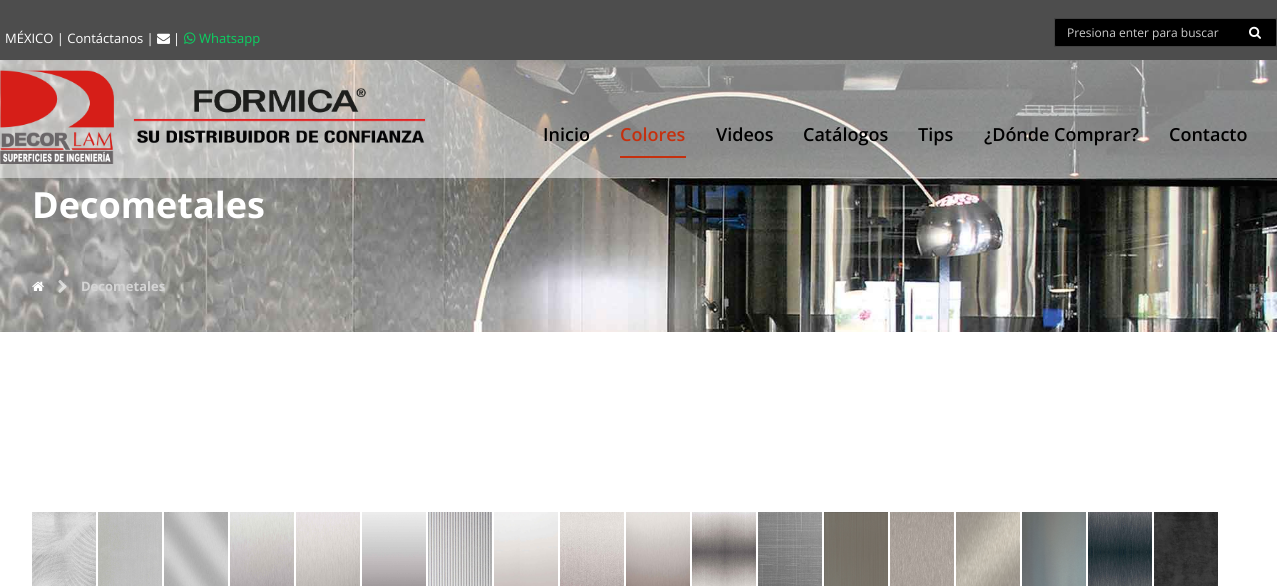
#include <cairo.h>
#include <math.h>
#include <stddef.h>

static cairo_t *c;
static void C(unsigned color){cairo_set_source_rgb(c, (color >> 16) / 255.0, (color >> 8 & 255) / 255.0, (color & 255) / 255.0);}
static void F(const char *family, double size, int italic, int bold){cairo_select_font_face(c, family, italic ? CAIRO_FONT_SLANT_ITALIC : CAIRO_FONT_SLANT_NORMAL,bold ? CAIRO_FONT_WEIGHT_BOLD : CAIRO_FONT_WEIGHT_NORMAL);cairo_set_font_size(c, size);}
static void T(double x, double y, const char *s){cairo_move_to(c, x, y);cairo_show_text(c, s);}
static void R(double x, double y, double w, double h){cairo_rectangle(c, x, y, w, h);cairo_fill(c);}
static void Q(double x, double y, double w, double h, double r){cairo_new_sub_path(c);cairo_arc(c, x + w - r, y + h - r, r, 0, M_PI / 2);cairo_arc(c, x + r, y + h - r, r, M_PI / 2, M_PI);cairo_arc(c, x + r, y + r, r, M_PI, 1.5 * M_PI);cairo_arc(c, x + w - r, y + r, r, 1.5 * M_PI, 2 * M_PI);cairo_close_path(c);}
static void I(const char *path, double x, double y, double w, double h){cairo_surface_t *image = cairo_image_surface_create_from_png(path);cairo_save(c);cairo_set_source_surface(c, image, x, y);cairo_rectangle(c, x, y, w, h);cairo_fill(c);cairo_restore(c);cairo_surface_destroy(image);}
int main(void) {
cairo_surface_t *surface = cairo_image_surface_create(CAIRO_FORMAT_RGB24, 1277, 586);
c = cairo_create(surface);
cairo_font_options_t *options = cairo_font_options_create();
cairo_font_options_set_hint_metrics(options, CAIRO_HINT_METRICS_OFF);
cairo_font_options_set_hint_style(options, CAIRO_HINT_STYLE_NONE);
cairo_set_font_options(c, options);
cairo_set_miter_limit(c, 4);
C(0xffffff);
cairo_paint(c);
C(0x4d4d4d);
R(0,0,1277,60);
F("Open Sans",13,0,0);
C(0xffffff);
T(5,43,"MÉXICO | Contáctanos |");
I("1.png",157,33,13,11);
T(173,43,"|");
I("2.png",184,32,12,12);
C(0x09d261);
T(199,43,"Whatsapp");
C(0x000000);
Q(1054,18,223,29,2);
cairo_fill(c);
Q(1054.5,18.5,222,28,1.5);
cairo_set_source_rgba(c,0.655,0.655,0.655,0.4);
cairo_set_line_width(c,1);
cairo_stroke(c);
F("Open Sans",12,0,0);
C(0xcccccc);
T(1067,37,"Presiona enter para buscar");
I("3.png",1249,26,12,13);
I("5.png",0,60,1277,272);
cairo_set_source_rgba(c,1,1,1,0.5);
R(0,60,1277,118);
I("4.png",0,70,426,94);
F("Open Sans SemiBold",18,0,0);
C(0x000000);
T(543,141,"Inicio");
C(0xc5300e);
T(620,141,"Colores");
R(620,156,66,2);
C(0x000000);
T(716,141,"Videos");
T(803,141,"Catálogos");
T(918,141,"Tips");
T(984,141,"¿Dónde Comprar?");
T(1169,141,"Contacto");
F("Open Sans",36,0,1);
C(0xffffff);
T(32,218,"Decometales");
I("6.png",32,281,12,10);
I("7.png",58,280,9,13);
F("Open Sans",13,0,1);
C(0xd4d4d4);
T(81,291,"Decometales");
I("8.png",32,512,64,74);
I("9.png",98,512,64,74);
I("10.png",164,512,64,74);
I("11.png",230,512,64,74);
I("12.png",296,512,64,74);
I("13.png",362,512,64,74);
I("14.png",428,512,64,74);
I("15.png",494,512,64,74);
I("16.png",560,512,64,74);
I("17.png",626,512,64,74);
I("18.png",692,512,64,74);
I("19.png",758,512,64,74);
I("20.png",824,512,64,74);
I("21.png",890,512,64,74);
I("22.png",956,512,64,74);
I("23.png",1022,512,64,74);
I("24.png",1088,512,64,74);
I("25.png",1154,512,64,74);
cairo_surface_write_to_png(surface, "o.png");
cairo_font_options_destroy(options);
cairo_destroy(c);
cairo_surface_destroy(surface);
return 0;
}
